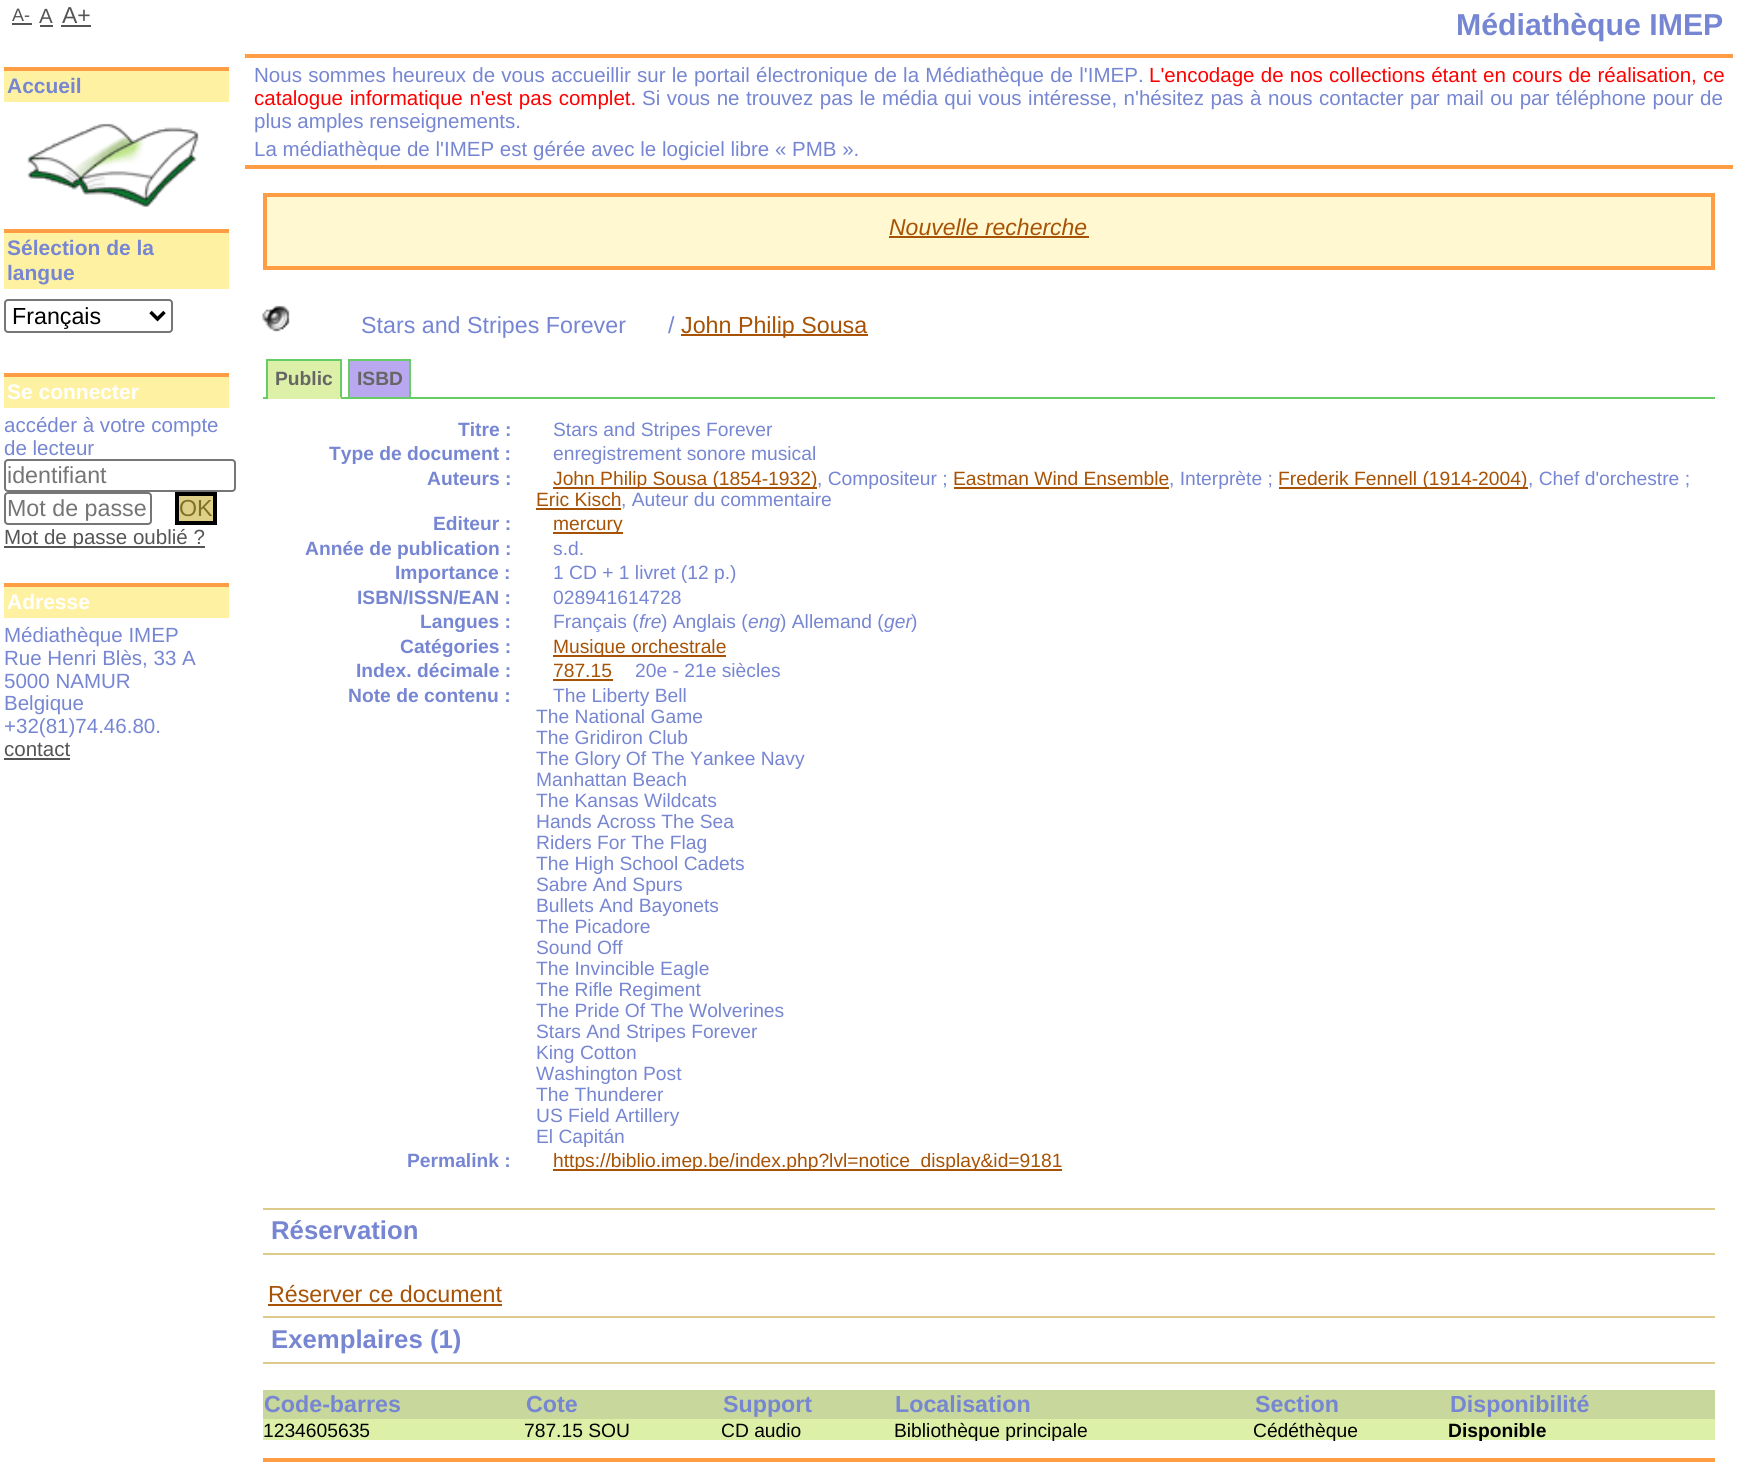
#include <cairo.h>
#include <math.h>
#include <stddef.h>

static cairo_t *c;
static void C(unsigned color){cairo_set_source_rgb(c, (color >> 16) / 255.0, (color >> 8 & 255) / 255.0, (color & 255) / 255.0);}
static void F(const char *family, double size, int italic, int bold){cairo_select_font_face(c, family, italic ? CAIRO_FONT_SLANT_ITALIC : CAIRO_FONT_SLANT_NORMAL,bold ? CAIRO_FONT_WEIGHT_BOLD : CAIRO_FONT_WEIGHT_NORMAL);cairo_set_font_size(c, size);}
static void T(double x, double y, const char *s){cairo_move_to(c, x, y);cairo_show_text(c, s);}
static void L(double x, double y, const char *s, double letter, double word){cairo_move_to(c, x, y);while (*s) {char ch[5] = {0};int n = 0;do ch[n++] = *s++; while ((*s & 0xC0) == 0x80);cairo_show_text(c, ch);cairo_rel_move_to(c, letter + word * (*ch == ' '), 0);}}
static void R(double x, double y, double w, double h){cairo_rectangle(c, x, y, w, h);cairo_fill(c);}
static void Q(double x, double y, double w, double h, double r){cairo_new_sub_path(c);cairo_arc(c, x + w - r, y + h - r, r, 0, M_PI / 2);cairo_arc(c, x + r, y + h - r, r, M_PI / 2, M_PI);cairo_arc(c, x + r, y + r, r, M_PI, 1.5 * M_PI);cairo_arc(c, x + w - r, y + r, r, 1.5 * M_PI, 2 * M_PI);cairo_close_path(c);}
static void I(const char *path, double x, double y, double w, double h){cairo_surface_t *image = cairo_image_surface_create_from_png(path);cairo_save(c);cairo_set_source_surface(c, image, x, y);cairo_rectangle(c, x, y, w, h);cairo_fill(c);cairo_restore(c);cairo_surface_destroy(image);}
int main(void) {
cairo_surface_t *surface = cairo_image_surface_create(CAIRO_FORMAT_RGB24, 1749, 1470);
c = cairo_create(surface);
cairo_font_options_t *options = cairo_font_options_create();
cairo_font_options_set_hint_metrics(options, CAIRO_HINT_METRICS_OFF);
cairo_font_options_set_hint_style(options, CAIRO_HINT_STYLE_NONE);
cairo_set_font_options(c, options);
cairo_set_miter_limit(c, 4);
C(0xffffff);
cairo_paint(c);
F("Liberation Sans",18,0,0);
C(0x555555);
T(12,21,"A-");
R(12,23,20,2);
F("Liberation Sans",20.53,0,0);
T(39,23,"A");
R(40,25,13,2);
F("Liberation Sans",23,0,0);
T(62,23,"A+");
R(61,25,30,2);
C(0xfff1a2);
R(4,71,225,31);
C(0xfe9d43);
R(4,67,225,4);
F("Liberation Sans",21,0,1);
C(0x7686d2);
T(7,93,"Accueil");
I("1.png",27,123,172,84);
C(0xfff1a2);
R(4,233,225,56);
C(0xfe9d43);
R(4,229,225,4);
C(0x7686d2);
T(7,255,"Sélection de la");
T(7,280,"langue");
Q(5,300,167,32,3);
C(0x767676);
cairo_stroke(c);
cairo_new_path(c);
cairo_move_to(c,150.5,312);
cairo_line_to(c,157.5,319);
cairo_line_to(c,164.5,312);
C(0x000000);
cairo_set_line_width(c,3.5);
cairo_stroke(c);
F("Liberation Sans",23.25,0,0);
T(12,324,"Français");
C(0xfff1a2);
R(4,377,225,31);
C(0xfe9d43);
R(4,373,225,4);
F("Liberation Sans",21,0,1);
C(0xffffff);
T(7,399,"Se connecter");
F("Liberation Sans",20.53,0,0);
C(0x7686d2);
T(4,432,"accéder à votre compte");
T(4,455,"de lecteur");
Q(5,460,230,31,3);
C(0x767676);
cairo_set_line_width(c,2);
cairo_stroke(c);
F("Liberation Sans",23.25,0,0);
C(0x757575);
T(7,483,"identifiant");
Q(5,493,146,31,3);
C(0x767676);
cairo_stroke(c);
C(0x757575);
T(7,516,"Mot de passe");
C(0xdfd087);
cairo_rectangle(c,177,494,38,29);
cairo_fill_preserve(c);
C(0x000000);
cairo_set_line_width(c,4);
cairo_stroke(c);
C(0x7f7027);
T(179,516,"OK");
C(0x555555);
R(4,546,201,2);
F("Liberation Sans",20.53,0,0);
T(4,544,"Mot de passe oublié ?");
C(0xfff1a2);
R(4,587,225,31);
C(0xfe9d43);
R(4,583,225,4);
F("Liberation Sans",21,0,1);
C(0xffffff);
T(7,609,"Adresse");
F("Liberation Sans",20.53,0,0);
C(0x7686d2);
T(4,642,"Médiathèque IMEP");
T(4,665,"Rue Henri Blès, 33 A");
T(4,688,"5000 NAMUR");
T(4,710,"Belgique");
T(4,733,"+32(81)74.46.80.");
C(0x555555);
T(4,756,"contact");
R(4,758,66,2);
C(0xfe9d43);
R(245,165,1488,4);
R(245,54,1488,4);
F("Liberation Sans",30.25,0,1);
C(0x7686d2);
T(1456,35,"Médiathèque IMEP");
F("Liberation Sans",20.53,0,0);
L(254,82,"Nous sommes heureux de vous accueillir sur le portail électronique de la Médiathèque de l'IMEP.",0,.5);
C(0xff0000);
L(1149,82,"L'encodage de nos collections étant en cours de réalisation, ce",0,.5);
L(254,105,"catalogue informatique n'est pas complet.",0,1);
C(0x7686d2);
L(642,105,"Si vous ne trouvez pas le média qui vous intéresse, n'hésitez pas à nous contacter par mail ou par téléphone pour de",0,.8);
T(254,128,"plus amples renseignements.");
T(254,156,"La médiathèque de l'IMEP est gérée avec le logiciel libre « PMB ».");
C(0xfff8d1);
cairo_rectangle(c,265,195,1448,73);
cairo_fill_preserve(c);
C(0xfe9d43);
cairo_stroke(c);
F("Liberation Sans",23,1,0);
C(0xa75204);
T(889,235,"Nouvelle recherche");
R(889,236,200,2);
I("2.png",262,305,28,27);
F("Liberation Sans",23.25,0,0);
C(0x7686d2);
T(361,333,"Stars and Stripes Forever");
T(668,333,"/");
C(0xa75204);
R(681,334,187,2);
T(681,333,"John Philip Sousa");
C(0x66cc66);
R(263,397,1452,2);
C(0xddf0a7);
R(268,361,72,36);
C(0x66cc66);
R(266,359,75,2);
R(340,359,2,40);
C(0xddf0a7);
R(266,397,75,2);
C(0x66cc66);
R(266,359,2,40);
F("Liberation Sans",19.25,0,1);
C(0x666666);
T(275,385,"Public");
C(0xb9a8f0);
cairo_rectangle(c,349,360,61,38);
cairo_fill_preserve(c);
C(0x66cc66);
cairo_set_line_width(c,2);
cairo_stroke(c);
C(0x666666);
T(357,385,"ISBD");
C(0x7686d2);
T(458,436,"Titre :");
F("Liberation Sans",19.25,0,0);
T(553,436,"Stars and Stripes Forever");
F("Liberation Sans",19.25,0,1);
T(329,460,"Type de document :");
F("Liberation Sans",19.25,0,0);
T(553,460,"enregistrement sonore musical");
F("Liberation Sans",19.25,0,1);
T(427,485,"Auteurs :");
C(0xa75204);
R(553,487,264,2);
F("Liberation Sans",19.25,0,0);
T(553,485,"John Philip Sousa (1854-1932)");
C(0x7686d2);
T(817,485,", Compositeur ;");
C(0xa75204);
T(953,485,"Eastman Wind Ensemble");
R(954,487,215,2);
C(0x7686d2);
T(1169,485,", Interprète ;");
C(0xa75204);
R(1279,487,249,2);
T(1278,485,"Frederik Fennell (1914-2004)");
C(0x7686d2);
T(1528,485,", Chef d'orchestre ;");
C(0xa75204);
T(536,506,"Eric Kisch");
C(0x7686d2);
T(621,506,", Auteur du commentaire");
C(0xa75204);
R(536,508,85,2);
F("Liberation Sans",19.25,0,1);
C(0x7686d2);
T(433,530,"Editeur :");
C(0xa75204);
R(553,532,70,2);
F("Liberation Sans",19.25,0,0);
T(553,530,"mercury");
F("Liberation Sans",19.25,0,1);
C(0x7686d2);
T(305,555,"Année de publication :");
F("Liberation Sans",19.25,0,0);
T(553,555,"s.d.");
F("Liberation Sans",19.25,0,1);
T(395,579,"Importance :");
F("Liberation Sans",19.25,0,0);
T(553,579,"1 CD + 1 livret (12 p.)");
F("Liberation Sans",19.25,0,1);
T(357,604,"ISBN/ISSN/EAN :");
F("Liberation Sans",19.25,0,0);
T(553,604,"028941614728");
F("Liberation Sans",19.25,0,1);
T(420,628,"Langues :");
F("Liberation Sans",19.25,0,0);
T(553,628,"Français (");
F("Liberation Sans",19.25,1,0);
T(639,628,"fre");
F("Liberation Sans",19.25,0,0);
T(661,628,") Anglais (");
F("Liberation Sans",19.25,1,0);
T(748,628,"eng");
F("Liberation Sans",19.25,0,0);
T(780,628,") Allemand (");
F("Liberation Sans",19.25,1,0);
T(884,628,"ger");
F("Liberation Sans",19.25,0,0);
T(911,628,")");
F("Liberation Sans",19.25,0,1);
T(400,653,"Catégories :");
C(0xa75204);
R(553,655,173,2);
F("Liberation Sans",19.25,0,0);
T(553,653,"Musique orchestrale");
F("Liberation Sans",19.25,0,1);
C(0x7686d2);
T(356,677,"Index. décimale :");
F("Liberation Sans",19.25,0,0);
C(0xa75204);
T(553,677,"787.15");
R(553,679,60,2);
C(0x7686d2);
T(635,677,"20e - 21e siècles");
F("Liberation Sans",19.25,0,1);
T(348,702,"Note de contenu :");
F("Liberation Sans",19.25,0,0);
T(553,702,"The Liberty Bell");
T(536,723,"The National Game");
T(536,744,"The Gridiron Club");
T(536,765,"The Glory Of The Yankee Navy");
T(536,786,"Manhattan Beach");
T(536,807,"The Kansas Wildcats");
T(536,828,"Hands Across The Sea");
T(536,849,"Riders For The Flag");
T(536,870,"The High School Cadets");
T(536,891,"Sabre And Spurs");
T(536,912,"Bullets And Bayonets");
T(536,933,"The Picadore");
T(536,954,"Sound Off");
T(536,975,"The Invincible Eagle");
T(536,996,"The Rifle Regiment");
T(536,1017,"The Pride Of The Wolverines");
T(536,1038,"Stars And Stripes Forever");
T(536,1059,"King Cotton");
T(536,1080,"Washington Post");
T(536,1101,"The Thunderer");
T(536,1122,"US Field Artillery");
T(536,1143,"El Capitán");
F("Liberation Sans",19.25,0,1);
T(407,1167,"Permalink :");
C(0xa75204);
R(553,1169,509,2);
F("Liberation Sans",19.25,0,0);
T(553,1167,"https://biblio.imep.be/index.php?lvl=notice_display&id=9181");
C(0xddcb8c);
R(263,1208,1452,2);
R(263,1253,1452,2);
F("Liberation Sans",25.75,0,1);
C(0x7686d2);
T(271,1239,"Réservation");
F("Liberation Sans",23.25,0,0);
C(0xa75204);
T(268,1302,"Réserver ce document");
R(268,1304,234,2);
C(0xddcb8c);
R(263,1316,1452,2);
R(263,1362,1452,2);
F("Liberation Sans",25.75,0,1);
C(0x7686d2);
T(271,1348,"Exemplaires (1)");
C(0xc8d79b);
R(263,1390,1452,29);
F("Liberation Sans",23.25,0,1);
C(0x7686d2);
T(264,1412,"Code-barres");
T(526,1412,"Cote");
T(723,1412,"Support");
T(895,1412,"Localisation");
T(1255,1412,"Section");
T(1450,1412,"Disponibilité");
C(0xddf0a7);
R(263,1419,1452,21);
F("Liberation Sans",19.25,0,0);
C(0x000000);
T(263,1437,"1234605635");
T(524,1437,"787.15 SOU");
T(721,1437,"CD audio");
T(894,1437,"Bibliothèque principale");
T(1253,1437,"Cédéthèque");
F("Liberation Sans",19.25,0,1);
T(1448,1437,"Disponible");
C(0xfe9d43);
R(263,1458,1452,4);
cairo_surface_write_to_png(surface, "o.png");
cairo_font_options_destroy(options);
cairo_destroy(c);
cairo_surface_destroy(surface);
return 0;
}
